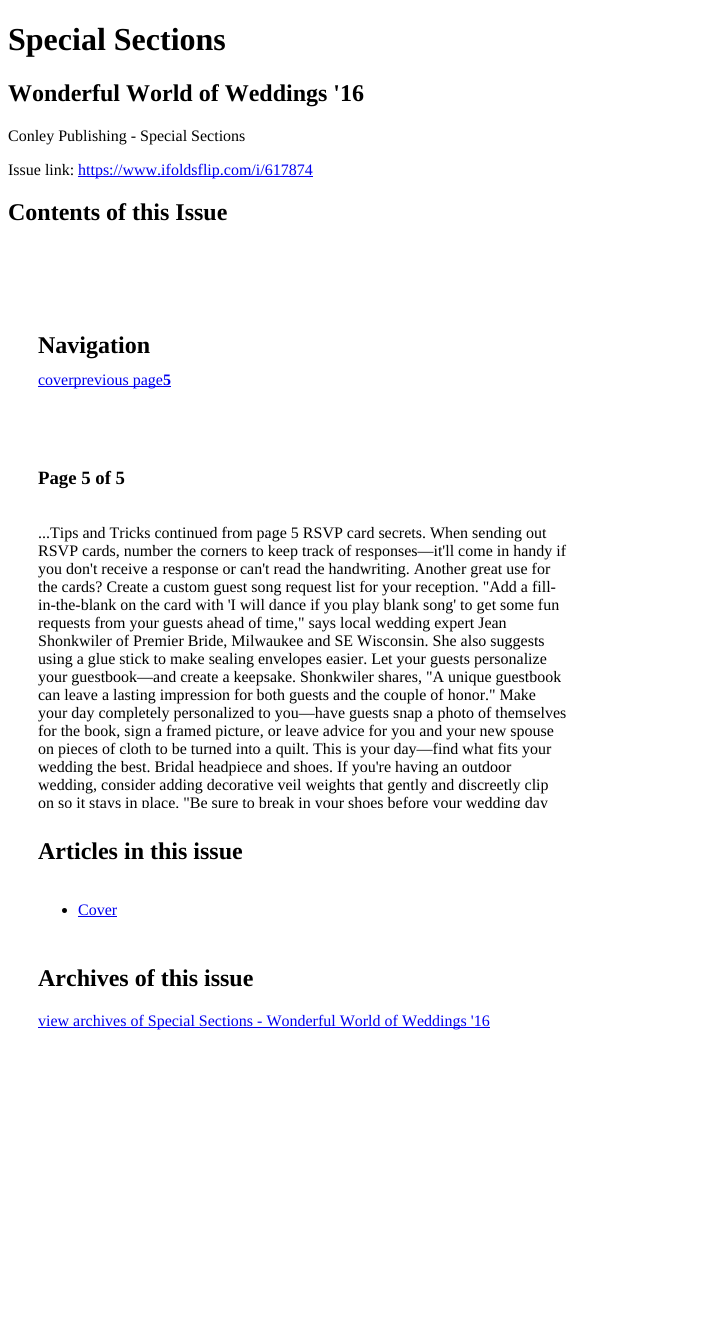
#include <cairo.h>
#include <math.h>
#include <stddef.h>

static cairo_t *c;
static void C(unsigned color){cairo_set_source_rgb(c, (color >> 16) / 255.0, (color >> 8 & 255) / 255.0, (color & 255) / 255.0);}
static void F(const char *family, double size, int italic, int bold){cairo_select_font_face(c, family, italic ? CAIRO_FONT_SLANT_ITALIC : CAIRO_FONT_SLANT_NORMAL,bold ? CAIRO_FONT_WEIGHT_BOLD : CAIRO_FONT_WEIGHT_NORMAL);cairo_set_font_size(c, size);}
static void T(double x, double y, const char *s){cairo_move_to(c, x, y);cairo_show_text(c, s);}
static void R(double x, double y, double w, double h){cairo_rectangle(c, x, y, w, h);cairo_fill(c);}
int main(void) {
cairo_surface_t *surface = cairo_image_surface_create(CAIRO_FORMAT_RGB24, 724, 1332);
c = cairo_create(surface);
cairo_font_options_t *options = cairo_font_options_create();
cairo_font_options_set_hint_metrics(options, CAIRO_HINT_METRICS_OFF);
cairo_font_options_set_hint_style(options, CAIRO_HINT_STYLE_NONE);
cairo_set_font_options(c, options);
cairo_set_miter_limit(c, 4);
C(0xffffff);
cairo_paint(c);
F("Liberation Serif",32,0,1);
C(0x000000);
T(8,50,"Special Sections");
F("Liberation Serif",24,0,1);
T(8,101,"Wonderful World of Weddings '16");
F("Liberation Serif",16,0,0);
T(8,141,"Conley Publishing - Special Sections");
T(8,175,"Issue link:");
C(0x0000ee);
R(78,176,235,1);
T(78,175,"https://www.ifoldsflip.com/i/617874");
F("Liberation Serif",24,0,1);
C(0x000000);
T(8,220,"Contents of this Issue");
T(38,353,"Navigation");
C(0x0000ee);
R(38,386,133,1);
F("Liberation Serif",16,0,0);
T(38,385,"coverprevious page");
F("Liberation Serif",16,0,1);
T(163,385,"5");
F("Liberation Serif",18.75,0,1);
C(0x000000);
T(38,484,"Page 5 of 5");
F("Liberation Serif",16,0,0);
T(38,538,"...Tips and Tricks continued from page 5 RSVP card secrets. When sending out");
T(38,556,"RSVP cards, number the corners to keep track of responses—it'll come in handy if");
T(38,574,"you don't receive a response or can't read the handwriting. Another great use for");
T(38,592,"the cards? Create a custom guest song request list for your reception. \"Add a fill-");
T(38,610,"in-the-blank on the card with 'I will dance if you play blank song' to get some fun");
T(38,628,"requests from your guests ahead of time,\" says local wedding expert Jean");
T(38,646,"Shonkwiler of Premier Bride, Milwaukee and SE Wisconsin. She also suggests");
T(38,664,"using a glue stick to make sealing envelopes easier. Let your guests personalize");
T(38,682,"your guestbook—and create a keepsake. Shonkwiler shares, \"A unique guestbook");
T(38,700,"can leave a lasting impression for both guests and the couple of honor.\" Make");
T(38,718,"your day completely personalized to you—have guests snap a photo of themselves");
T(38,736,"for the book, sign a framed picture, or leave advice for you and your new spouse");
T(38,754,"on pieces of cloth to be turned into a quilt. This is your day—find what fits your");
T(38,772,"wedding the best. Bridal headpiece and shoes. If you're having an outdoor");
T(38,790,"wedding, consider adding decorative veil weights that gently and discreetly clip");
cairo_save(c);
cairo_rectangle(c,38,508,550,300);
cairo_clip(c);
T(38,808,"on so it stays in place. \"Be sure to break in your shoes before your wedding day");
cairo_restore(c);
F("Liberation Serif",24,0,1);
T(38,859,"Articles in this issue");
cairo_new_path(c);
cairo_arc(c,64.5,910.5,2.5,0,2 * M_PI);
cairo_fill(c);
F("Liberation Serif",16,0,0);
C(0x0000ee);
T(78,915,"Cover");
R(78,916,39,1);
F("Liberation Serif",24,0,1);
C(0x000000);
T(38,986,"Archives of this issue");
C(0x0000ee);
R(38,1027,452,1);
F("Liberation Serif",16,0,0);
T(38,1026,"view archives of Special Sections - Wonderful World of Weddings '16");
cairo_surface_write_to_png(surface, "o.png");
cairo_font_options_destroy(options);
cairo_destroy(c);
cairo_surface_destroy(surface);
return 0;
}
